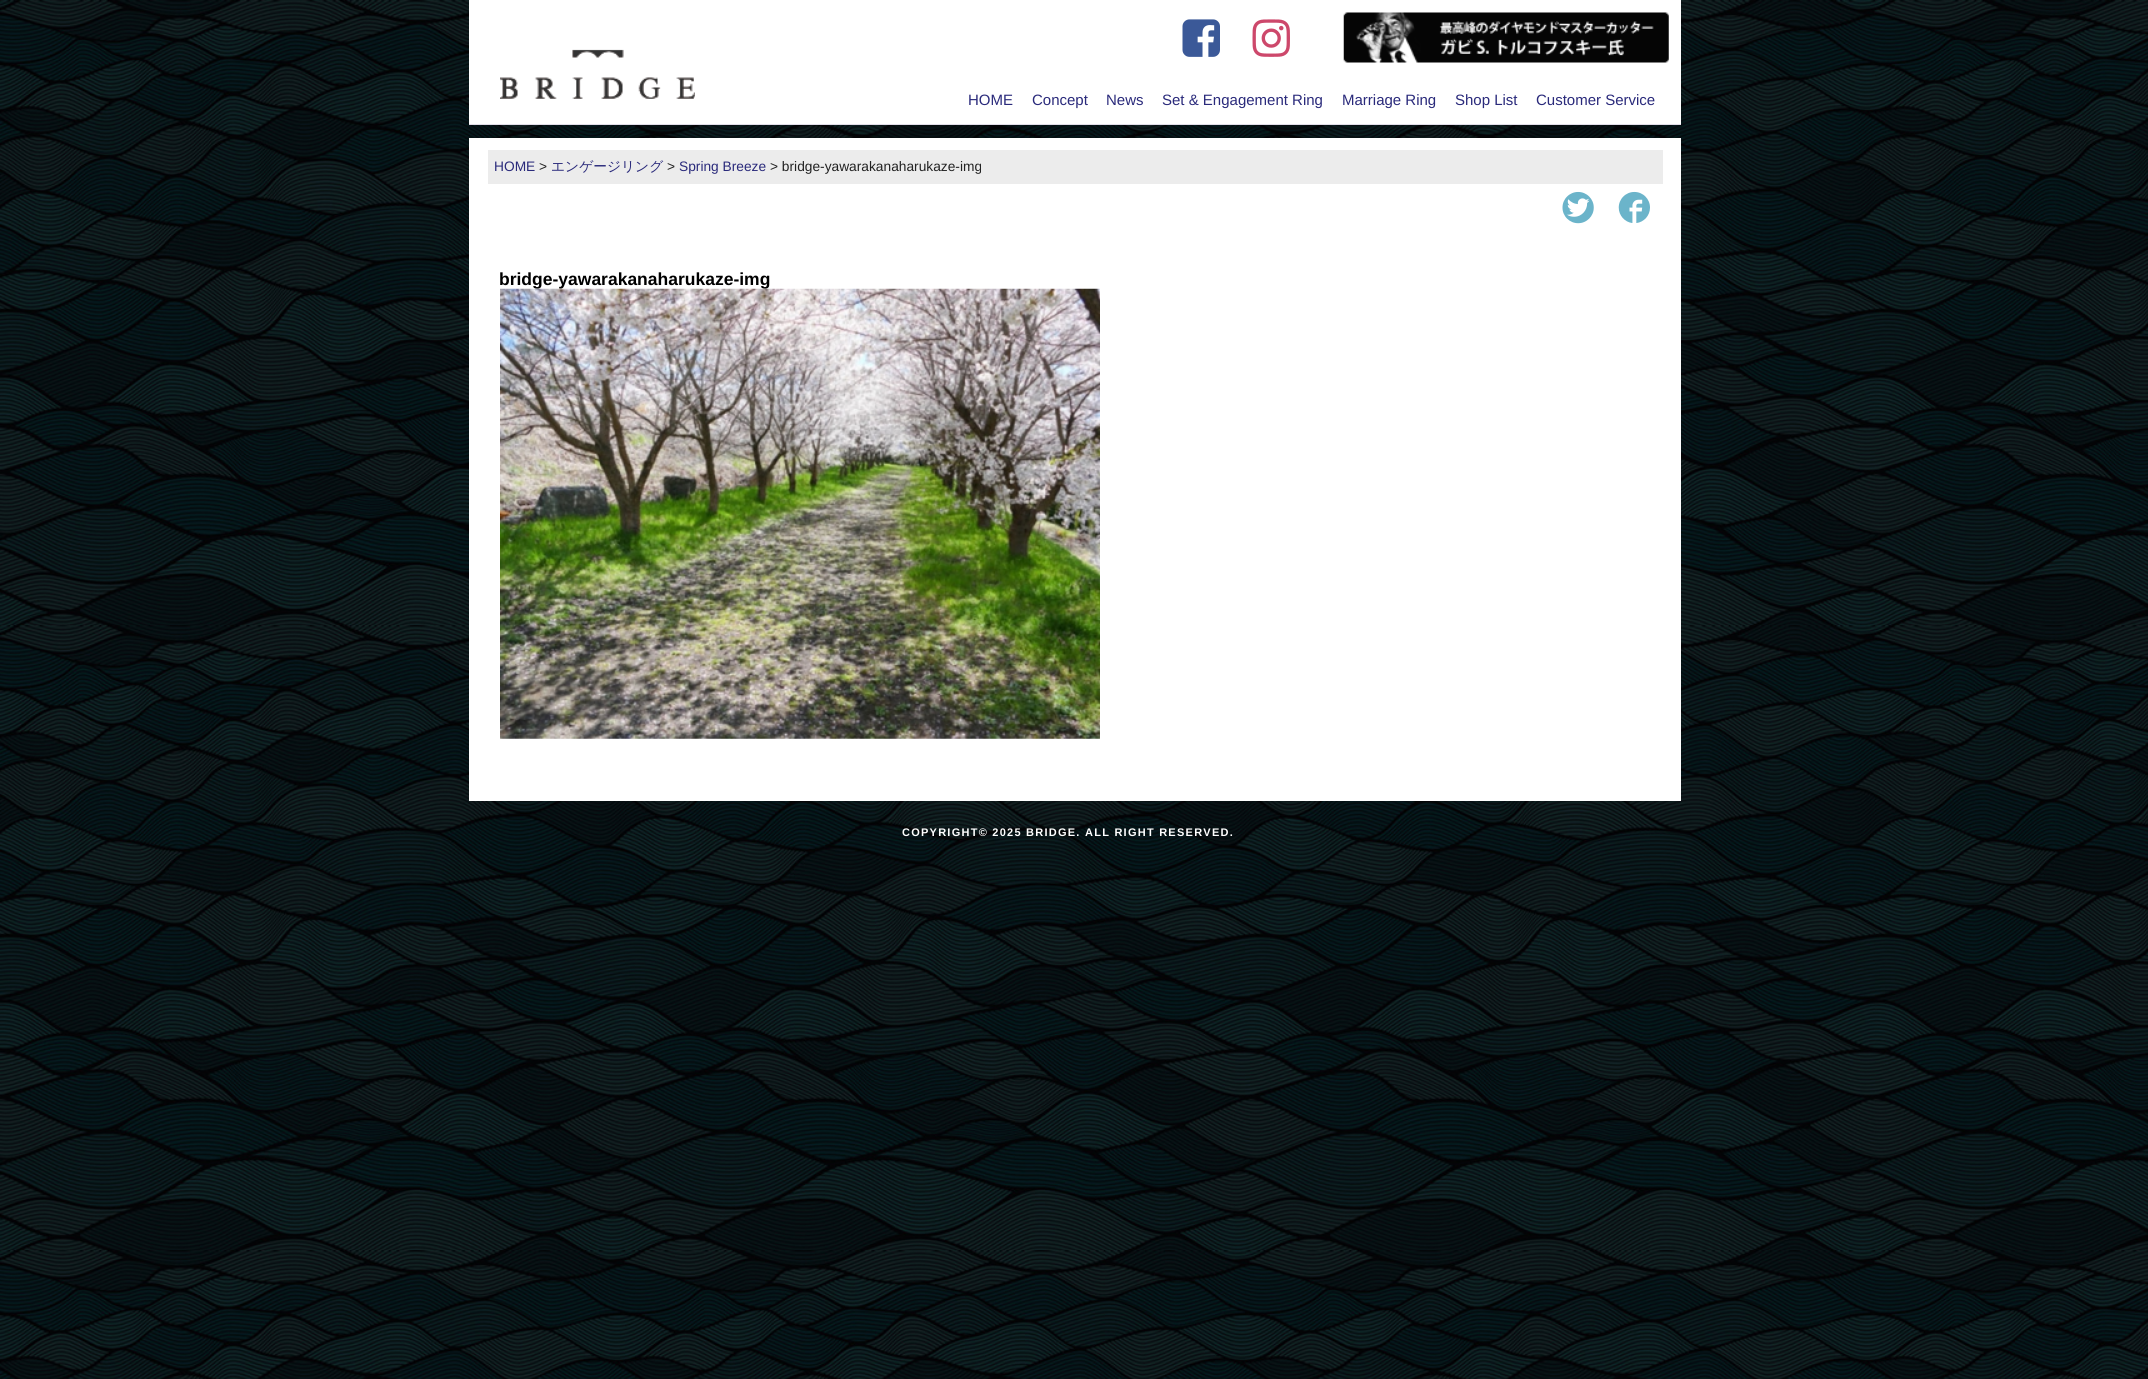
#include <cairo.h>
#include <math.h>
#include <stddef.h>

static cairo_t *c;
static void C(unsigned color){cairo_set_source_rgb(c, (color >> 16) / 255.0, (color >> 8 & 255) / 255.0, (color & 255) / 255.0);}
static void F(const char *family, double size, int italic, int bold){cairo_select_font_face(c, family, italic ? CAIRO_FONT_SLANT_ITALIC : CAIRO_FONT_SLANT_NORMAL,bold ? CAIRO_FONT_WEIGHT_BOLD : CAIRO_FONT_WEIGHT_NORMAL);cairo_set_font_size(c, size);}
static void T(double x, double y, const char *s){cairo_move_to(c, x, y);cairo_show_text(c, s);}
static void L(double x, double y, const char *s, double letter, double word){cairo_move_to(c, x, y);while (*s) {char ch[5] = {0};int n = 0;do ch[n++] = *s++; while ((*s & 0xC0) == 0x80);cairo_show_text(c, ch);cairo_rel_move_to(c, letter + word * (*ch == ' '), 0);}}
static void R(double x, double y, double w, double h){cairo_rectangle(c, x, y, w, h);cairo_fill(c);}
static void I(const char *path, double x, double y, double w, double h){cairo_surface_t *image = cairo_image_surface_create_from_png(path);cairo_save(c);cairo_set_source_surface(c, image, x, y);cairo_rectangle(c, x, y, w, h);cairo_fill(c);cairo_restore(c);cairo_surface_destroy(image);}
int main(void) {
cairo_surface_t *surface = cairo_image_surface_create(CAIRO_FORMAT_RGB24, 2148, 1379);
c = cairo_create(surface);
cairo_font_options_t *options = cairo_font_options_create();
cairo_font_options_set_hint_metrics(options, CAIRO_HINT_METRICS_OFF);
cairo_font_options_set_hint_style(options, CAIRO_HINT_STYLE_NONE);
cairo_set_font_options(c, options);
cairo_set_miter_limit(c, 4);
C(0xffffff);
cairo_paint(c);
I("1.png",0,0,2148,1379);
C(0xffffff);
R(469,0,1212,124);
C(0xe1dde8);
R(469,124,1212,1);
I("2.png",1182,19,38,38);
I("3.png",1252,19,38,38);
I("4.png",1343,12,326,51);
I("5.png",500,49,195,50);
F("Liberation Sans",15,0,0);
C(0x2a2a7b);
T(968,105,"HOME");
T(1032,105,"Concept");
T(1106,105,"News");
T(1162,105,"Set & Engagement Ring");
T(1342,105,"Marriage Ring");
T(1455,105,"Shop List");
T(1536,105,"Customer Service");
C(0xffffff);
R(469,138,1212,663);
C(0xececec);
R(488,150,1175,34);
F("Liberation Sans",13.75,0,0);
C(0x2a2a7b);
T(494,171,"HOME");
C(0x222222);
T(539,171,">");
F("WenQuanYi Zen Hei Medium",13.75,0,0);
C(0x2a2a7b);
T(551,171,"エンゲージリング");
F("Liberation Sans",13.75,0,0);
C(0x222222);
T(667,171,">");
C(0x2a2a7b);
T(679,171,"Spring Breeze");
C(0x222222);
T(770,171,"> bridge-yawarakanaharukaze-img");
I("6.png",1562,191,32,33);
I("7.png",1618,191,32,32);
F("Liberation Sans",17.5,0,1);
C(0x000000);
T(499,285,"bridge-yawarakanaharukaze-img");
I("8.png",500,288,600,451);
F("Liberation Sans",11,0,1);
C(0xffffff);
L(902,836,"COPYRIGHT© 2025 BRIDGE. ALL RIGHT RESERVED.",1.25,0);
cairo_surface_write_to_png(surface, "o.png");
cairo_font_options_destroy(options);
cairo_destroy(c);
cairo_surface_destroy(surface);
return 0;
}
